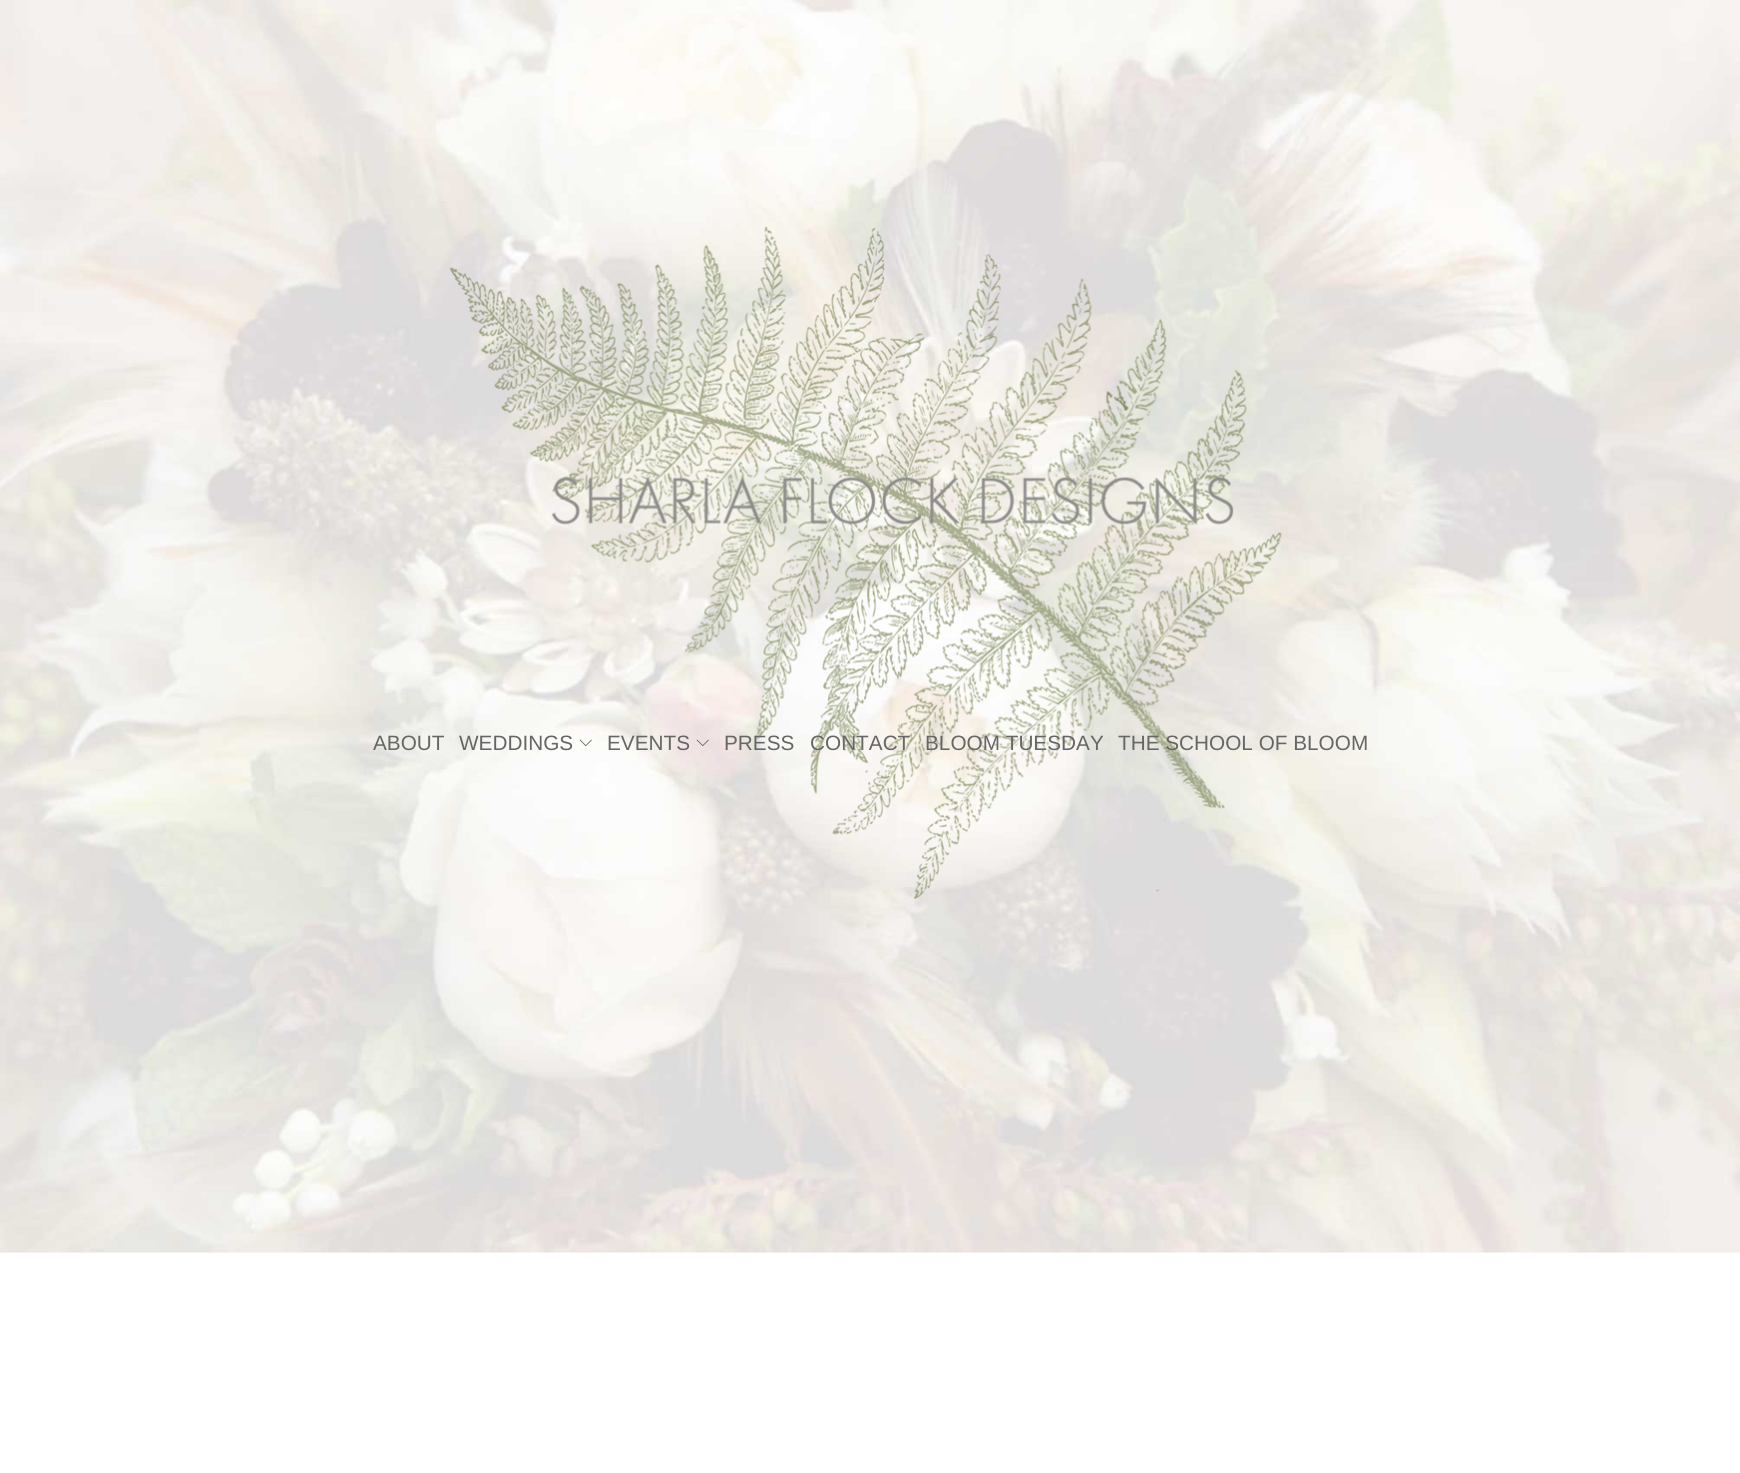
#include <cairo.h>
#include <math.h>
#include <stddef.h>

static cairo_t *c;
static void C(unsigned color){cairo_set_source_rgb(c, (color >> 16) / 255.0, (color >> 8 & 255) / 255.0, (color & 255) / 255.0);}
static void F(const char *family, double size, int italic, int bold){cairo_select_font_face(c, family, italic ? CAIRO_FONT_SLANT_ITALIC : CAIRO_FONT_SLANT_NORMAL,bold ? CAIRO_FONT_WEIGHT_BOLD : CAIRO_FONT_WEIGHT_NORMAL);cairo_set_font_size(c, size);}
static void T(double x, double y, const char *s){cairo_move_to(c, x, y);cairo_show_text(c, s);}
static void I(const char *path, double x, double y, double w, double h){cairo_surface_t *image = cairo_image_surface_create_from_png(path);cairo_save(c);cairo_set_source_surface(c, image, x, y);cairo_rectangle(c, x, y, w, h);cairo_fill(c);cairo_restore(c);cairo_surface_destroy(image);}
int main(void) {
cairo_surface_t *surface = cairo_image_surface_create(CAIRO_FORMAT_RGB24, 1740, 1473);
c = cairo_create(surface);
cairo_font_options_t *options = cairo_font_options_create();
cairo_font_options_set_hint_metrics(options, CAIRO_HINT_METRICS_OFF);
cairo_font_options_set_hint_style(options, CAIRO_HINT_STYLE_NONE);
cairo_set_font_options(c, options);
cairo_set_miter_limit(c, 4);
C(0xffffff);
cairo_paint(c);
I("1.png",0,0,1740,1253);
I("2.png",449,226,833,674);
F("Liberation Sans",20.75,0,0);
C(0x666666);
T(373,750,"ABOUT");
T(459,750,"WEDDINGS");
I("3.png",579,739,13,8);
T(607,750,"EVENTS");
I("4.png",696,739,13,8);
T(724,750,"PRESS");
T(810,750,"CONTACT");
T(925,750,"BLOOM TUESDAY");
T(1118,750,"THE SCHOOL OF BLOOM");
cairo_surface_write_to_png(surface, "o.png");
cairo_font_options_destroy(options);
cairo_destroy(c);
cairo_surface_destroy(surface);
return 0;
}
